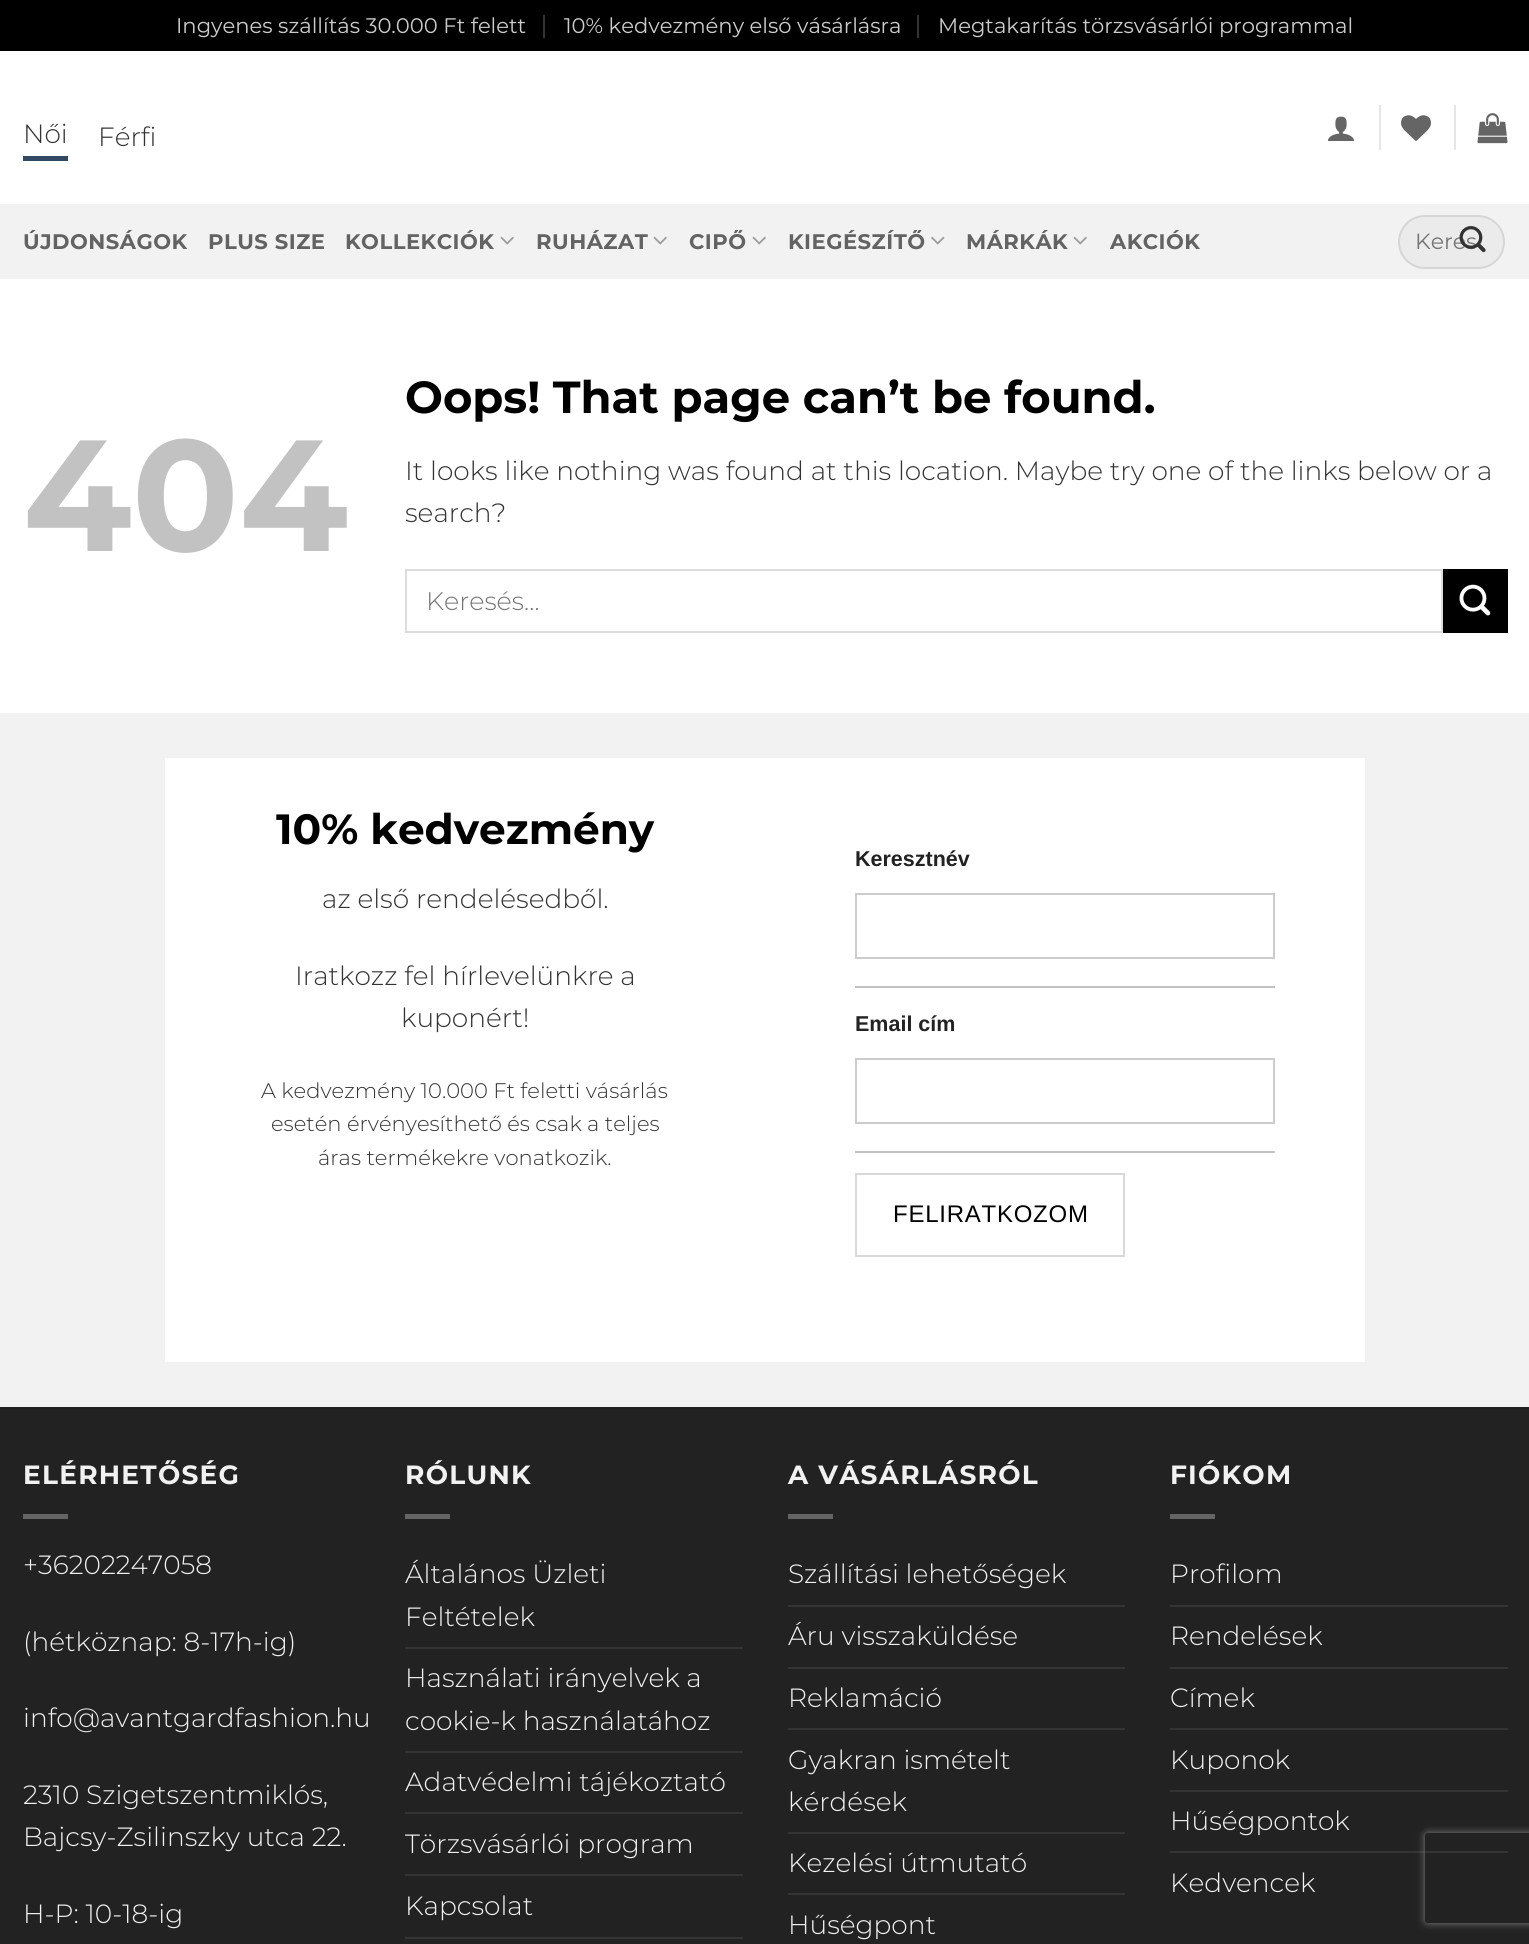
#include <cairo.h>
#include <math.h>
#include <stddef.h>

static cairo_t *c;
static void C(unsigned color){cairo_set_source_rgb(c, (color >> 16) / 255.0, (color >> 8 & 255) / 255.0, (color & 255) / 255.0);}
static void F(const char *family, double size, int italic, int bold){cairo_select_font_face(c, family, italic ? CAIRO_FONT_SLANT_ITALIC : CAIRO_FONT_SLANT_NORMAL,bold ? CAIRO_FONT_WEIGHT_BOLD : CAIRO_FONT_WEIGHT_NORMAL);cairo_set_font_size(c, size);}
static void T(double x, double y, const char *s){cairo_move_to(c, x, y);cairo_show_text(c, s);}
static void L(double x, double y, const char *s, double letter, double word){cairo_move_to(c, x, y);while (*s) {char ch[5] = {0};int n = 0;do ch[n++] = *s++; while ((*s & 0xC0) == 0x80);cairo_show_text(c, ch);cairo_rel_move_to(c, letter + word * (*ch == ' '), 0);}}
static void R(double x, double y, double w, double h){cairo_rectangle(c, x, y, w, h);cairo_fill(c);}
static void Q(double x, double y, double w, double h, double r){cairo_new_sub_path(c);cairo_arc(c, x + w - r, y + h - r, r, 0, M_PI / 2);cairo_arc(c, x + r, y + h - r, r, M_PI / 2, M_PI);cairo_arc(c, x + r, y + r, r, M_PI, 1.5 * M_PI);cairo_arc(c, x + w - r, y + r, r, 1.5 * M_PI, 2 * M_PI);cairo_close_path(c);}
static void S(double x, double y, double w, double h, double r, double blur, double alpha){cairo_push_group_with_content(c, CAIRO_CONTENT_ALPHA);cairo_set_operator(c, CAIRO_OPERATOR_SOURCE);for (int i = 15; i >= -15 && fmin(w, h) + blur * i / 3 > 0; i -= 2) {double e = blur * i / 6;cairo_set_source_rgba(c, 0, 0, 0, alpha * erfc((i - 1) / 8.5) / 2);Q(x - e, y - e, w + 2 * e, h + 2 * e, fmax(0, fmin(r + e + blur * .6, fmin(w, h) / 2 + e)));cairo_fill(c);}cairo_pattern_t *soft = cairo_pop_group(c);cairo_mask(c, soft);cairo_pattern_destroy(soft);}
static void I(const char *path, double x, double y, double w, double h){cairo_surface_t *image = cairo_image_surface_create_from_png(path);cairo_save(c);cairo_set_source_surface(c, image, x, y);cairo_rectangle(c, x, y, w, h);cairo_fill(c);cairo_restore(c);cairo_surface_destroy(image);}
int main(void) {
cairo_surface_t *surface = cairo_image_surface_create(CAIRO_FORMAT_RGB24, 1529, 1944);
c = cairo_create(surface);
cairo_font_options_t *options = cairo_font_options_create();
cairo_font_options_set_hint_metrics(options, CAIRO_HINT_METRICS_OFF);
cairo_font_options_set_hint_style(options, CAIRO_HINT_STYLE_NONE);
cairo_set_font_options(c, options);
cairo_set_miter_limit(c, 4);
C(0xffffff);
cairo_paint(c);
C(0x000000);
R(0,0,1529,51);
F("Montserrat",21.1,0,0);
C(0xcccccc);
T(176,33,"Ingyenes szállítás 30.000 Ft felett");
C(0x333333);
R(543,15,2,23);
C(0xcccccc);
T(564,33,"10% kedvezmény első vásárlásra");
C(0x333333);
R(917,15,2,23);
C(0xcccccc);
T(938,33,"Megtakarítás törzsvásárlói programmal");
C(0x334862);
R(23,156,45,5);
F("Montserrat Light",26.4,0,0);
C(0x333333);
T(23,143,"Női");
T(98,146,"Férfi");
I("1.png",1327,116,28,25);
C(0xe6e6e6);
R(1379,105,2,45);
I("2.png",1401,115,30,26);
R(1454,105,2,45);
I("3.png",1477,113,31,31);
C(0xf2f2f2);
R(0,204,1529,75);
F("Montserrat",21.1,0,1);
C(0x636363);
L(23,249,"ÚJDONSÁGOK",.5,0);
L(208,249,"PLUS SIZE",.5,0);
L(345,249,"KOLLEKCIÓK",.5,0);
I("4.png",500,236,14,9);
L(536,249,"RUHÁZAT",.5,0);
I("4.png",653,236,14,9);
L(689,249,"CIPŐ",.5,0);
I("4.png",752,236,14,9);
L(788,249,"KIEGÉSZÍTŐ",.5,0);
I("5.png",931,236,14,9);
L(966,249,"MÁRKÁK",.5,0);
I("4.png",1073,236,14,9);
L(1110,249,"AKCIÓK",.5,0);
C(0xebebeb);
Q(1398,215,107,54,27);
cairo_fill(c);
Q(1399,216,105,52,26);
cairo_set_source_rgba(c,0,0,0,0.09);
cairo_stroke(c);
F("Montserrat",22,0,0);
C(0x757575);
T(1415,249,"Keres");
I("6.png",1459,226,27,27);
F("Montserrat",158,0,1);
C(0xc2c2c2);
T(23,551,"404");
F("Montserrat",44.9,0,1);
C(0x000000);
T(405,413,"Oops! That page can’t be found.");
F("Montserrat Light",26.4,0,0);
C(0x333333);
T(405,480,"It looks like nothing was found at this location. Maybe try one of the links below or a");
T(405,522,"search?");
cairo_rectangle(c,406,570,1036,62);
C(0xdddddd);
cairo_stroke(c);
F("Montserrat Light",25.5,0,0);
C(0x757575);
T(426,610,"Keresés…");
C(0x000000);
R(1443,569,65,64);
I("7.png",1459,584,32,32);
C(0xf2f2f2);
R(0,713,1529,694);
C(0xffffff);
R(165,758,1200,604);
F("Montserrat",42.25,0,1);
C(0x000000);
T(276,844,"10% kedvezmény");
F("Montserrat Light",26.4,0,0);
C(0x333333);
T(322,908,"az első rendelésedből.");
T(295,985,"Iratkozz fel hírlevelünkre a");
T(401,1027,"kuponért!");
F("Montserrat Light",21.1,0,0);
T(261,1098,"A kedvezmény 10.000 Ft feletti vásárlás");
T(271,1131,"esetén érvényesíthető és csak a teljes");
T(318,1165,"áras termékekre vonatkozik.");
F("Liberation Sans",21.5,0,1);
C(0x222222);
T(855,866,"Keresztnév");
cairo_rectangle(c,856,894,418,64);
C(0xcccccc);
cairo_stroke(c);
C(0xc2c0c2);
R(855,986,420,2);
C(0x222222);
T(855,1031,"Email cím");
cairo_rectangle(c,856,1059,418,64);
C(0xcccccc);
cairo_stroke(c);
C(0xc2c0c2);
R(855,1151,420,2);
cairo_rectangle(c,856,1174,268,82);
C(0xd9d9d9);
cairo_stroke(c);
F("Liberation Sans",24,0,0);
C(0x000000);
L(893,1222,"FELIRATKOZOM",.75,0);
C(0x222222);
R(0,1409,1529,535);
C(0x202020);
R(0,1407,1529,2);
F("Montserrat",26.4,0,1);
C(0xf1f1f1);
L(23,1484,"ELÉRHETŐSÉG",1.25,0);
C(0x646464);
R(23,1514,45,5);
F("Montserrat Light",26.4,0,0);
C(0xf1f1f1);
T(23,1574,"+36202247058");
T(23,1651,"(hétköznap: 8-17h-ig)");
T(23,1727,"info@avantgardfashion.hu");
T(23,1804,"2310 Szigetszentmiklós,");
T(23,1846,"Bajcsy-Zsilinszky utca 22.");
T(23,1923,"H-P: 10-18-ig");
F("Montserrat",26.4,0,1);
L(405,1484,"RÓLUNK",1.25,0);
C(0x646464);
R(405,1514,45,5);
F("Montserrat Light",26.4,0,0);
C(0xf1f1f1);
T(405,1583,"Általános Üzleti");
T(405,1626,"Feltételek");
C(0x343434);
R(405,1647,338,2);
C(0xf1f1f1);
T(405,1687,"Használati irányelvek a");
T(405,1730,"cookie-k használatához");
C(0x343434);
R(405,1751,338,2);
C(0xf1f1f1);
T(405,1791,"Adatvédelmi tájékoztató");
C(0x343434);
R(405,1812,338,2);
C(0xf1f1f1);
T(405,1853,"Törzsvásárlói program");
C(0x343434);
R(405,1874,338,2);
C(0xf1f1f1);
T(405,1915,"Kapcsolat");
C(0x343434);
R(405,1937,338,2);
F("Montserrat",26.4,0,1);
C(0xf1f1f1);
L(788,1484,"A VÁSÁRLÁSRÓL",1.25,0);
C(0x646464);
R(788,1514,45,5);
F("Montserrat Light",26.4,0,0);
C(0xf1f1f1);
T(788,1583,"Szállítási lehetőségek");
C(0x343434);
R(788,1605,337,2);
C(0xf1f1f1);
T(788,1645,"Áru visszaküldése");
C(0x343434);
R(788,1667,337,2);
C(0xf1f1f1);
T(788,1707,"Reklamáció");
C(0x343434);
R(788,1728,337,2);
C(0xf1f1f1);
T(788,1769,"Gyakran ismételt");
T(788,1811,"kérdések");
C(0x343434);
R(788,1832,337,2);
C(0xf1f1f1);
T(788,1872,"Kezelési útmutató");
C(0x343434);
R(788,1893,337,2);
C(0xf1f1f1);
T(788,1934,"Hűségpont");
F("Montserrat",26.4,0,1);
L(1170,1484,"FIÓKOM",1.25,0);
C(0x646464);
R(1170,1514,45,5);
F("Montserrat Light",26.4,0,0);
C(0xf1f1f1);
T(1170,1583,"Profilom");
C(0x343434);
R(1170,1605,338,2);
C(0xf1f1f1);
T(1170,1645,"Rendelések");
C(0x343434);
R(1170,1667,338,2);
C(0xf1f1f1);
T(1170,1707,"Címek");
C(0x343434);
R(1170,1728,338,2);
C(0xf1f1f1);
T(1170,1769,"Kuponok");
C(0x343434);
R(1170,1790,338,2);
C(0xf1f1f1);
T(1170,1830,"Hűségpontok");
C(0x343434);
R(1170,1851,338,2);
C(0xf1f1f1);
T(1170,1892,"Kedvencek");
cairo_save(c);
cairo_set_fill_rule(c,CAIRO_FILL_RULE_EVEN_ODD);
cairo_new_path(c);
cairo_move_to(c,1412,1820);
cairo_line_to(c,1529,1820);
cairo_line_to(c,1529,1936);
cairo_line_to(c,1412,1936);
cairo_close_path(c);
cairo_move_to(c,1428,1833);
cairo_line_to(c,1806,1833);
cairo_curve_to(c,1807.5,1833,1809,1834.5,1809,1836);
cairo_line_to(c,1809,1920);
cairo_curve_to(c,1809,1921.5,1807.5,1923,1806,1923);
cairo_line_to(c,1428,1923);
cairo_curve_to(c,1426.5,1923,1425,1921.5,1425,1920);
cairo_line_to(c,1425,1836);
cairo_curve_to(c,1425,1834.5,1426.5,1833,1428,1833);
cairo_close_path(c);
cairo_clip(c);
C(0x808080);
S(1425,1833,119,90,3,4,1);
cairo_restore(c);
cairo_surface_write_to_png(surface, "o.png");
cairo_font_options_destroy(options);
cairo_destroy(c);
cairo_surface_destroy(surface);
return 0;
}
